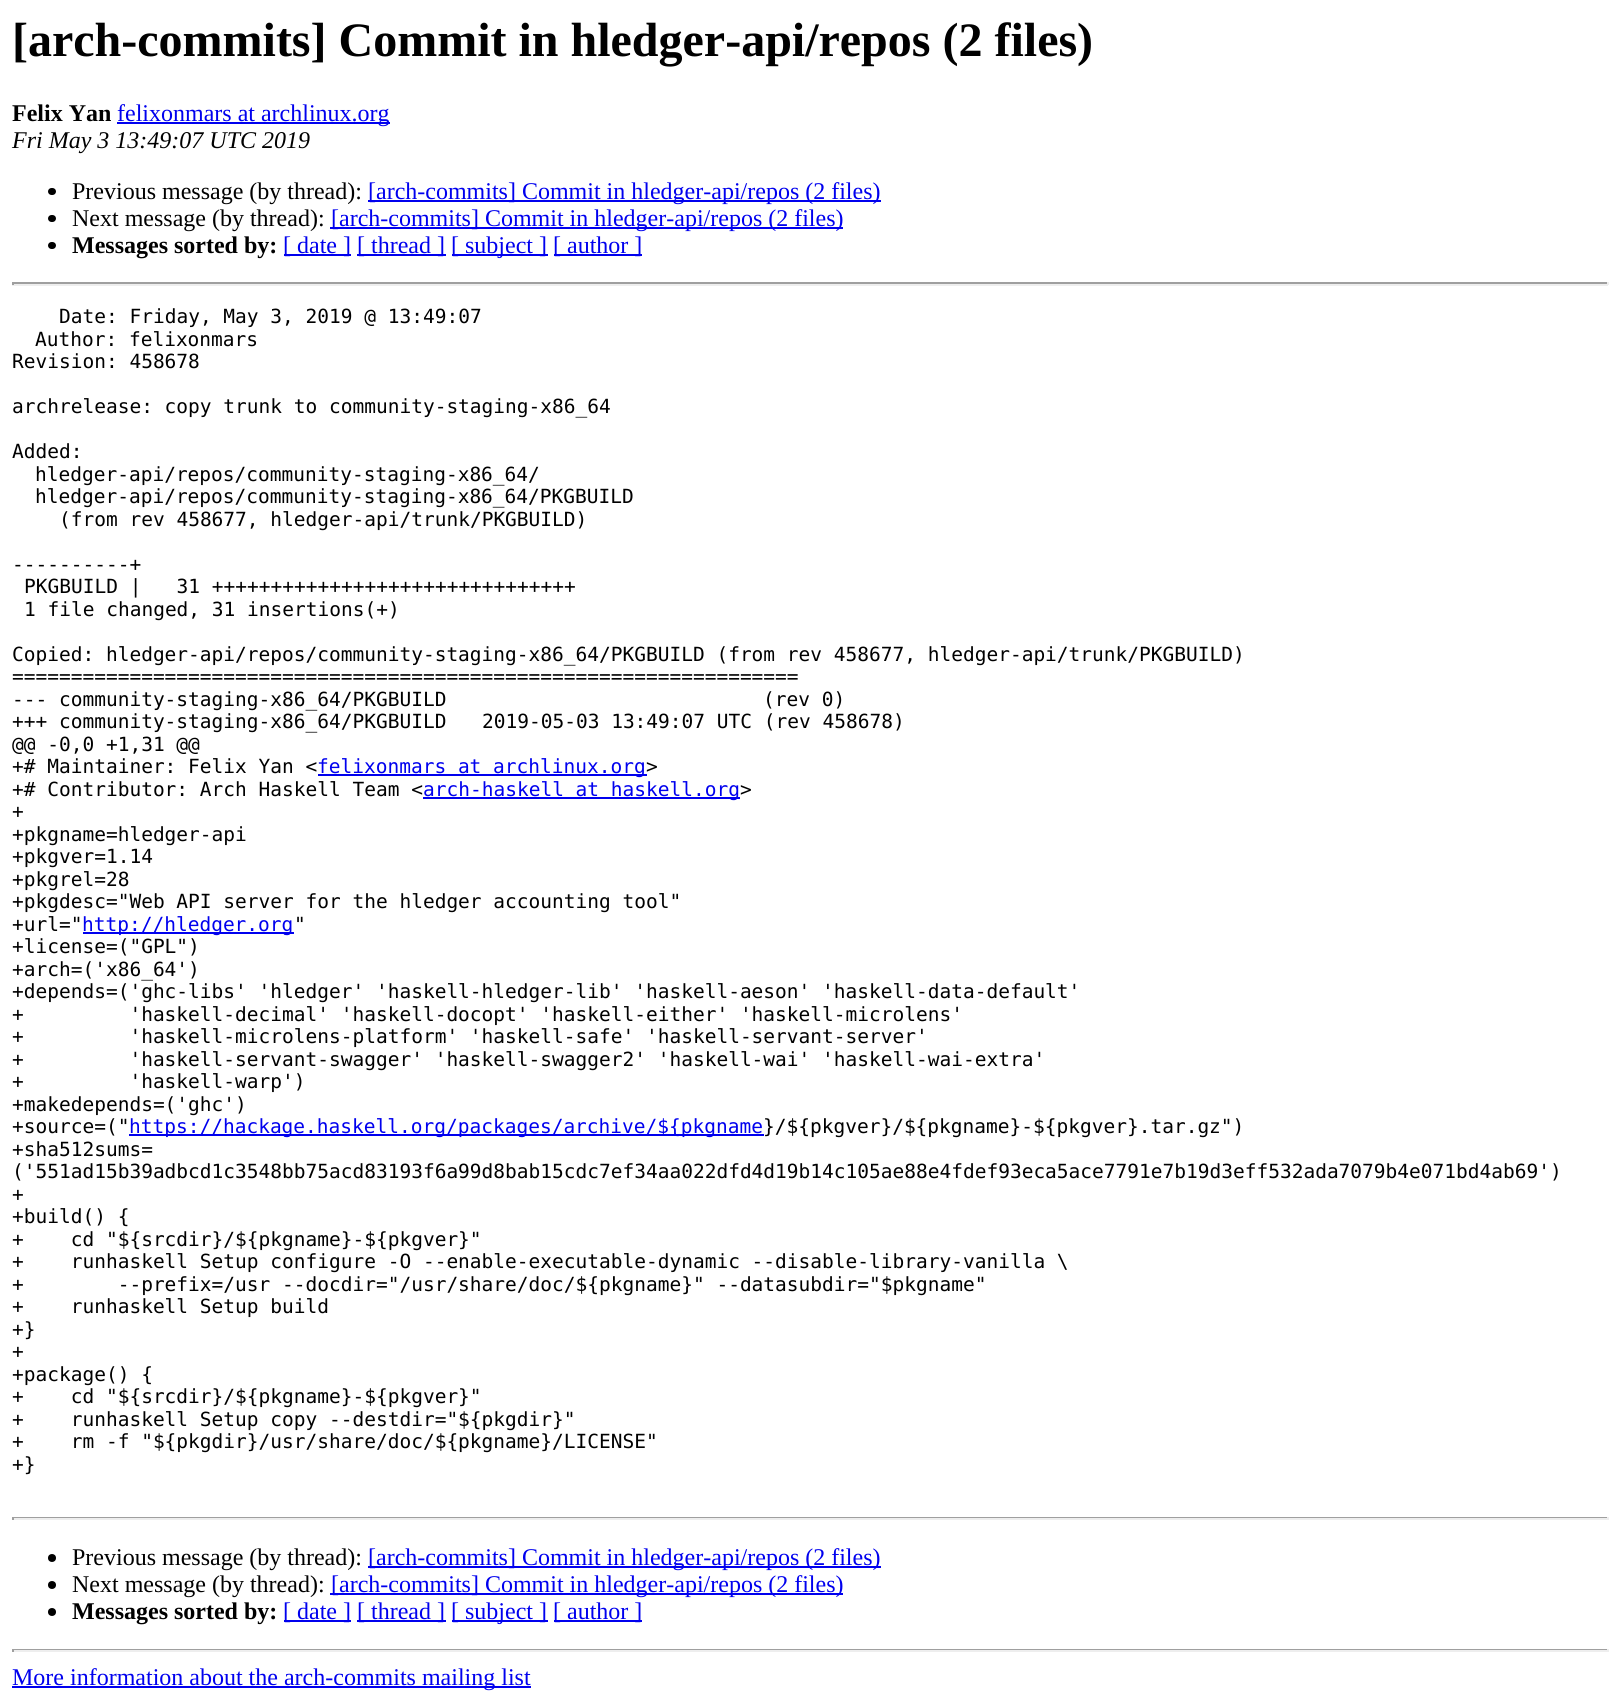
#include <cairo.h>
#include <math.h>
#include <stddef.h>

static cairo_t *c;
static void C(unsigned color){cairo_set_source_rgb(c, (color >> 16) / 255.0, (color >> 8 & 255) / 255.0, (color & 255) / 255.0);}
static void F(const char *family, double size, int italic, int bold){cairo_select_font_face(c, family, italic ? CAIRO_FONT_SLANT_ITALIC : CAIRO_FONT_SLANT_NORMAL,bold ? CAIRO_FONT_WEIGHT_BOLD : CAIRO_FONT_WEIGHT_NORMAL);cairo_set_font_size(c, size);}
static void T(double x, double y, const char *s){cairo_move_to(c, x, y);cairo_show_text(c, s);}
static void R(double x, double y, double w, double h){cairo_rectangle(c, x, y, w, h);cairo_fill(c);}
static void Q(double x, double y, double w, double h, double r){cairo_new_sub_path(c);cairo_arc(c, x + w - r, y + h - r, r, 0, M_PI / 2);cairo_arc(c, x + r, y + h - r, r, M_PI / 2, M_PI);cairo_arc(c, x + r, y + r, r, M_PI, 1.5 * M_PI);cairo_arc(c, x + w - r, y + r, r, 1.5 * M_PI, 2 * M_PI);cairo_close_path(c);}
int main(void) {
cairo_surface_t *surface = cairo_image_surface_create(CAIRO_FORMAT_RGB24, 1620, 1695);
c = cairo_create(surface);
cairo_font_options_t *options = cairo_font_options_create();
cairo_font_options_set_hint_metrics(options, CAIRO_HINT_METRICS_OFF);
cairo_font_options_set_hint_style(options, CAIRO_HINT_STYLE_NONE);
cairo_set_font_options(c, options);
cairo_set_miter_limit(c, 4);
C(0xffffff);
cairo_paint(c);
F("Liberation Serif",48,0,1);
C(0x000000);
T(12,56,"[arch-commits] Commit in hledger-api/repos (2 files)");
F("Liberation Serif",24,0,1);
T(12,121,"Felix Yan");
C(0x0000ee);
R(117,122,273,2);
F("Liberation Serif",24,0,0);
T(117,121,"felixonmars at archlinux.org");
F("Liberation Serif",24,1,0);
C(0x000000);
T(12,148,"Fri May 3 13:49:07 UTC 2019");
Q(48,188,8,7,3.5);
cairo_fill(c);
F("Liberation Serif",24,0,0);
T(72,199,"Previous message (by thread):");
C(0x0000ee);
R(368,200,513,2);
T(368,199,"[arch-commits] Commit in hledger-api/repos (2 files)");
C(0x000000);
Q(48,215,8,7,3.5);
cairo_fill(c);
T(72,226,"Next message (by thread):");
C(0x0000ee);
R(330,227,513,2);
T(331,226,"[arch-commits] Commit in hledger-api/repos (2 files)");
C(0x000000);
Q(48,242,8,7,3.5);
cairo_fill(c);
F("Liberation Serif",24,0,1);
T(72,253,"Messages sorted by:");
C(0x0000ee);
R(284,254,67,2);
F("Liberation Serif",24,0,0);
T(283,253,"[ date ]");
R(357,254,89,2);
T(357,253,"[ thread ]");
R(452,254,96,2);
T(451,253,"[ subject ]");
R(554,254,88,2);
T(553,253,"[ author ]");
C(0x9f9f9f);
R(12,282,1596,2);
C(0xeeeeee);
R(1607,282,2,3);
R(12,284,1596,2);
C(0x9f9f9f);
R(12,282,2,3);
F("DejaVu Sans Mono",19.5,0,0);
C(0x000000);
T(59,323,"Date: Friday, May 3, 2019 @ 13:49:07");
T(35,346,"Author: felixonmars");
T(12,368,"Revision: 458678");
T(12,413,"archrelease: copy trunk to community-staging-x86_64");
T(12,458,"Added:");
T(35,481,"hledger-api/repos/community-staging-x86_64/");
T(35,503,"hledger-api/repos/community-staging-x86_64/PKGBUILD");
T(59,526,"(from rev 458677, hledger-api/trunk/PKGBUILD)");
T(12,571,"----------+");
T(24,593,"PKGBUILD |   31 +++++++++++++++++++++++++++++++");
T(24,616,"1 file changed, 31 insertions(+)");
T(12,661,"Copied: hledger-api/repos/community-staging-x86_64/PKGBUILD (from rev 458677, hledger-api/trunk/PKGBUILD)");
T(12,683,"===================================================================");
T(12,706,"--- community-staging-x86_64/PKGBUILD");
T(763,706,"(rev 0)");
T(12,728,"+++ community-staging-x86_64/PKGBUILD");
T(482,728,"2019-05-03 13:49:07 UTC (rev 458678)");
T(12,751,"@@ -0,0 +1,31 @@");
T(12,773,"+# Maintainer: Felix Yan <");
C(0x0000ee);
R(318,774,329,2);
T(317,773,"felixonmars at archlinux.org");
C(0x000000);
T(646,773,">");
T(12,796,"+# Contributor: Arch Haskell Team <");
C(0x0000ee);
R(423,797,317,2);
T(423,796,"arch-haskell at haskell.org");
C(0x000000);
T(740,796,">");
T(12,818,"+");
T(12,841,"+pkgname=hledger-api");
T(12,863,"+pkgver=1.14");
T(12,886,"+pkgrel=28");
T(12,908,"+pkgdesc=\"Web API server for the hledger accounting tool\"");
T(12,931,"+url=\"");
C(0x0000ee);
R(83,932,211,2);
T(82,931,"http://hledger.org");
C(0x000000);
T(294,931,"\"");
T(12,953,"+license=(\"GPL\")");
T(12,976,"+arch=('x86_64')");
T(12,998,"+depends=('ghc-libs' 'hledger' 'haskell-hledger-lib' 'haskell-aeson' 'haskell-data-default'");
T(12,1021,"+         'haskell-decimal' 'haskell-docopt' 'haskell-either' 'haskell-microlens'");
T(12,1043,"+         'haskell-microlens-platform' 'haskell-safe' 'haskell-servant-server'");
T(12,1066,"+         'haskell-servant-swagger' 'haskell-swagger2' 'haskell-wai' 'haskell-wai-extra'");
T(12,1088,"+         'haskell-warp')");
T(12,1111,"+makedepends=('ghc')");
T(12,1133,"+source=(\"");
C(0x0000ee);
R(129,1134,635,2);
T(129,1133,"https://hackage.haskell.org/packages/archive/${pkgname");
C(0x000000);
T(763,1133,"}/${pkgver}/${pkgname}-${pkgver}.tar.gz\")");
T(12,1156,"+sha512sums=");
T(12,1178,"('551ad15b39adbcd1c3548bb75acd83193f6a99d8bab15cdc7ef34aa022dfd4d19b14c105ae88e4fdef93eca5ace7791e7b19d3eff532ada7079b4e071bd4ab69')");
T(12,1201,"+");
T(12,1223,"+build() {");
T(12,1246,"+    cd \"${srcdir}/${pkgname}-${pkgver}\"");
T(12,1268,"+    runhaskell Setup configure -O --enable-executable-dynamic --disable-library-vanilla \\");
T(12,1291,"+        --prefix=/usr --docdir=\"/usr/share/doc/${pkgname}\" --datasubdir=\"$pkgname\"");
T(12,1313,"+    runhaskell Setup build");
T(12,1336,"+}");
T(12,1358,"+");
T(12,1381,"+package() {");
T(12,1403,"+    cd \"${srcdir}/${pkgname}-${pkgver}\"");
T(12,1426,"+    runhaskell Setup copy --destdir=\"${pkgdir}\"");
T(12,1448,"+    rm -f \"${pkgdir}/usr/share/doc/${pkgname}/LICENSE\"");
T(12,1471,"+}");
C(0x9f9f9f);
R(12,1517,1596,1);
C(0xeeeeee);
R(1607,1517,2,3);
R(12,1518,1596,2);
C(0x9f9f9f);
R(12,1517,2,3);
C(0x000000);
cairo_new_path(c);
cairo_arc(c,52,1558,4,0,2 * M_PI);
cairo_fill(c);
F("Liberation Serif",24,0,0);
T(72,1565,"Previous message (by thread):");
C(0x0000ee);
R(368,1566,513,2);
T(368,1565,"[arch-commits] Commit in hledger-api/repos (2 files)");
C(0x000000);
cairo_new_path(c);
cairo_arc(c,52,1585,4,0,2 * M_PI);
cairo_fill(c);
T(72,1592,"Next message (by thread):");
C(0x0000ee);
R(330,1593,513,2);
T(331,1592,"[arch-commits] Commit in hledger-api/repos (2 files)");
C(0x000000);
cairo_new_path(c);
cairo_arc(c,52,1612,4,0,2 * M_PI);
cairo_fill(c);
F("Liberation Serif",24,0,1);
T(72,1619,"Messages sorted by:");
C(0x0000ee);
R(284,1620,67,2);
F("Liberation Serif",24,0,0);
T(283,1619,"[ date ]");
R(357,1620,89,2);
T(357,1619,"[ thread ]");
R(452,1620,96,2);
T(451,1619,"[ subject ]");
R(554,1620,88,2);
T(553,1619,"[ author ]");
C(0x9f9f9f);
R(12,1649,1596,1);
C(0xeeeeee);
R(1607,1649,2,3);
R(12,1650,1596,2);
C(0x9f9f9f);
R(12,1649,2,3);
C(0x0000ee);
R(12,1686,519,2);
T(12,1685,"More information about the arch-commits mailing list");
cairo_surface_write_to_png(surface, "o.png");
cairo_font_options_destroy(options);
cairo_destroy(c);
cairo_surface_destroy(surface);
return 0;
}
